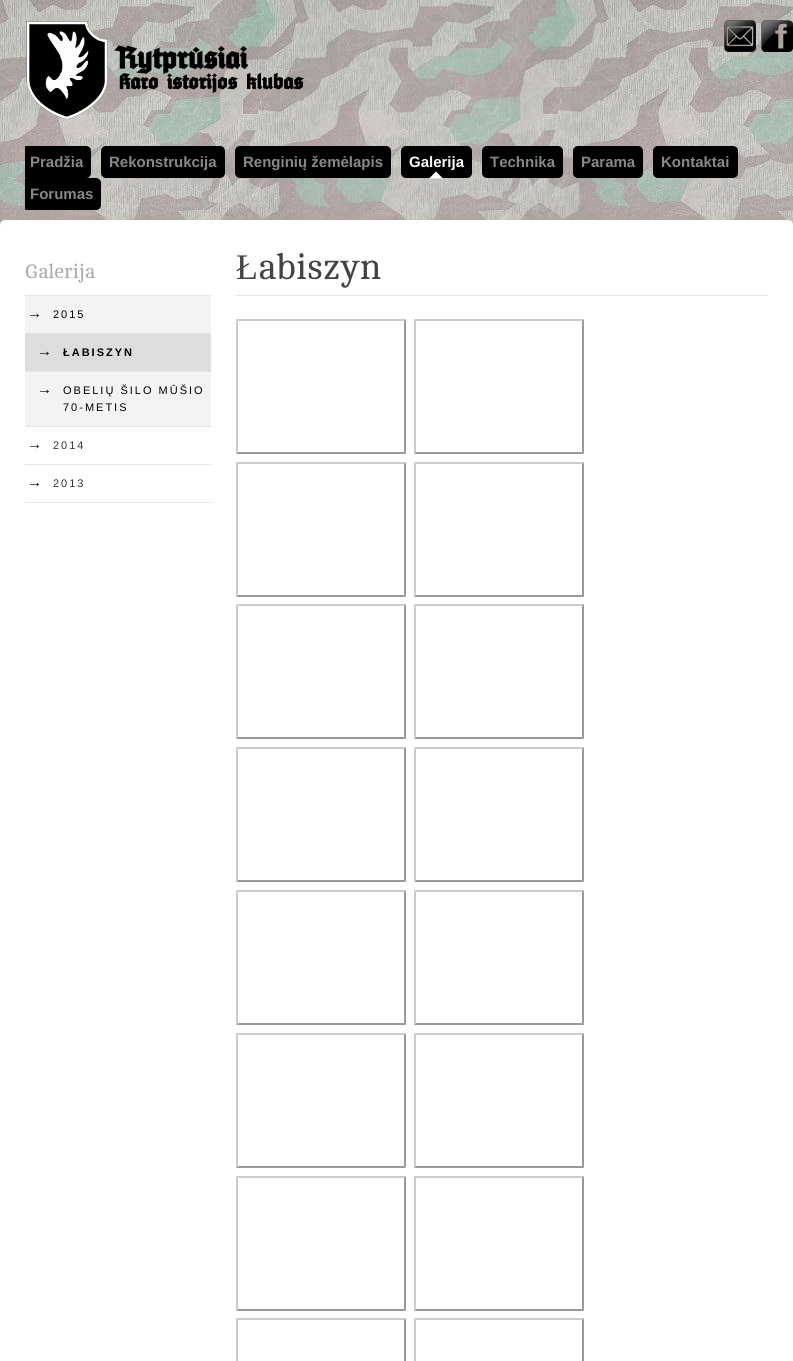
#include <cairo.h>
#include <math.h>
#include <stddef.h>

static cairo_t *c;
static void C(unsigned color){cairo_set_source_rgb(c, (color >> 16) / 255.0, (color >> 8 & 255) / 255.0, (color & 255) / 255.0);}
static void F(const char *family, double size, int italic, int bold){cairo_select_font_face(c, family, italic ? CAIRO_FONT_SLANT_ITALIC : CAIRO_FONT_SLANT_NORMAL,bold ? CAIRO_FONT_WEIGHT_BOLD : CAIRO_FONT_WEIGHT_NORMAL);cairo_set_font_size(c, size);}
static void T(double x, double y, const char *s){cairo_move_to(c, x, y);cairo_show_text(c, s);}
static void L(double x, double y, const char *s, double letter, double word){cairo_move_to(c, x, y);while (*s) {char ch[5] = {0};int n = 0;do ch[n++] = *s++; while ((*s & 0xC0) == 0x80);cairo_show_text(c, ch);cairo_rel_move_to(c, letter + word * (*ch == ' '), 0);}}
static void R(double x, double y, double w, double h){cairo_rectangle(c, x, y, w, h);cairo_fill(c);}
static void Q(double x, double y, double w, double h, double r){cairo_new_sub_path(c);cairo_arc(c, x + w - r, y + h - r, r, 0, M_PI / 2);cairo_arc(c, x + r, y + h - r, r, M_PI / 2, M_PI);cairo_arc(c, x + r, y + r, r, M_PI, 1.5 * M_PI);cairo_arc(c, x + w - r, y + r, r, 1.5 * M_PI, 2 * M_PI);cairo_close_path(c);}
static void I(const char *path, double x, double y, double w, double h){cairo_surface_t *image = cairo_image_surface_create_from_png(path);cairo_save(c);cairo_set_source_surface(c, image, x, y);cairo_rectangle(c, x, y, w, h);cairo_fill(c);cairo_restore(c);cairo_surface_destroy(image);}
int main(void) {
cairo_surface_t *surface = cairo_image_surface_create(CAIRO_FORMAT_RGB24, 793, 1361);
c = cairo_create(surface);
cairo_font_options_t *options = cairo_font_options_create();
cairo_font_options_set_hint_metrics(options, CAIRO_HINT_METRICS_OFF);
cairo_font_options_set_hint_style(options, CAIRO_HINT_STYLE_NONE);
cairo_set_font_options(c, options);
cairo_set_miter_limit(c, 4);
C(0xffffff);
cairo_paint(c);
I("1.png",0,0,793,225);
I("2.png",26,21,278,99);
I("3.png",724,20,32,32);
I("4.png",761,20,32,32);
cairo_save(c);
cairo_rectangle(c,25,20,768,190);
cairo_clip(c);
C(0x000000);
Q(22,146,69,32,5);
cairo_fill(c);
cairo_restore(c);
F("Liberation Sans",15,0,1);
C(0x888888);
T(30,167,"Pradžia");
C(0x000000);
Q(101,146,124,32,5);
cairo_fill(c);
C(0x888888);
T(109,167,"Rekonstrukcija");
C(0x000000);
Q(235,146,156,32,5);
cairo_fill(c);
C(0x888888);
T(243,167,"Renginių žemėlapis");
C(0x000000);
Q(401,146,71,32,5);
cairo_fill(c);
C(0xffffff);
T(409,167,"Galerija");
cairo_new_path(c);
cairo_move_to(c,443,178.5);
cairo_line_to(c,429,178.5);
cairo_line_to(c,436,171.5);
cairo_close_path(c);
cairo_fill(c);
C(0x000000);
Q(482,146,81,32,5);
cairo_fill(c);
C(0x888888);
T(490,167,"Technika");
C(0x000000);
Q(573,146,70,32,5);
cairo_fill(c);
C(0x888888);
T(581,167,"Parama");
C(0x000000);
Q(653,146,85,32,5);
cairo_fill(c);
C(0x888888);
T(661,167,"Kontaktai");
cairo_save(c);
cairo_rectangle(c,25,20,768,190);
cairo_clip(c);
C(0x000000);
Q(22,178,79,32,5);
cairo_fill(c);
cairo_restore(c);
T(30,199,"Forumas");
C(0xffffff);
Q(0,220,793,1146,5);
cairo_fill(c);
C(0xe5e5e5);
R(25,502,186,1);
F("Cambo",20,0,0);
C(0xaaaaaa);
T(25,278,"Galerija");
C(0xf3f3f3);
R(25,296,186,130);
C(0xe5e5e5);
R(25,295,186,1);
F("Liberation Sans",15,0,0);
C(0x000000);
L(27,318,"→",2,0);
F("Liberation Sans",11,0,0);
L(53,318,"2015",2,0);
C(0xe5e5e5);
R(25,333,186,1);
C(0xdddddd);
R(25,334,186,37);
F("Liberation Sans",15,0,1);
C(0x000000);
L(37,356,"→",2,0);
F("Liberation Sans",11,0,1);
L(63,356,"ŁABISZYN",2,0);
C(0xe5e5e5);
R(25,371,186,1);
F("Liberation Sans",15,0,0);
C(0x000000);
L(37,394,"→",2,0);
F("Liberation Sans",11,0,0);
L(63,394,"OBELIŲ ŠILO MŪŠIO",2,0);
L(63,411,"70-METIS",2,0);
C(0xe5e5e5);
R(25,426,186,1);
F("Liberation Sans",15,0,0);
C(0x000000);
L(27,449,"→",2,0);
F("Liberation Sans",11,0,0);
C(0x333333);
L(53,449,"2014",2,0);
C(0xe5e5e5);
R(25,464,186,1);
F("Liberation Sans",15,0,0);
C(0x000000);
L(27,487,"→",2,0);
F("Liberation Sans",11,0,0);
C(0x333333);
L(53,487,"2013",2,0);
C(0xe5e5e5);
R(236,295,532,1);
F("Liberation Serif",36,0,0);
C(0x444444);
T(236,279,"Ł");
F("Cambo",36,0,0);
T(258,279,"abiszyn");
C(0xcccccc);
cairo_new_path(c);
cairo_move_to(c,236,319);
cairo_line_to(c,406,319);
cairo_line_to(c,404,321);
cairo_line_to(c,238,321);
cairo_close_path(c);
cairo_fill(c);
C(0x999999);
cairo_new_path(c);
cairo_move_to(c,406,319);
cairo_line_to(c,406,454);
cairo_line_to(c,404,452);
cairo_line_to(c,404,321);
cairo_close_path(c);
cairo_fill(c);
cairo_new_path(c);
cairo_move_to(c,406,454);
cairo_line_to(c,236,454);
cairo_line_to(c,238,452);
cairo_line_to(c,404,452);
cairo_close_path(c);
cairo_fill(c);
C(0xcccccc);
cairo_new_path(c);
cairo_move_to(c,236,454);
cairo_line_to(c,236,319);
cairo_line_to(c,238,321);
cairo_line_to(c,238,452);
cairo_close_path(c);
cairo_fill(c);
cairo_new_path(c);
cairo_move_to(c,414,319);
cairo_line_to(c,584,319);
cairo_line_to(c,582,321);
cairo_line_to(c,416,321);
cairo_close_path(c);
cairo_fill(c);
C(0x999999);
cairo_new_path(c);
cairo_move_to(c,584,319);
cairo_line_to(c,584,454);
cairo_line_to(c,582,452);
cairo_line_to(c,582,321);
cairo_close_path(c);
cairo_fill(c);
cairo_new_path(c);
cairo_move_to(c,584,454);
cairo_line_to(c,414,454);
cairo_line_to(c,416,452);
cairo_line_to(c,582,452);
cairo_close_path(c);
cairo_fill(c);
C(0xcccccc);
cairo_new_path(c);
cairo_move_to(c,414,454);
cairo_line_to(c,414,319);
cairo_line_to(c,416,321);
cairo_line_to(c,416,452);
cairo_close_path(c);
cairo_fill(c);
cairo_new_path(c);
cairo_move_to(c,236,462);
cairo_line_to(c,406,462);
cairo_line_to(c,404,464);
cairo_line_to(c,238,464);
cairo_close_path(c);
cairo_fill(c);
C(0x999999);
cairo_new_path(c);
cairo_move_to(c,406,462);
cairo_line_to(c,406,597);
cairo_line_to(c,404,595);
cairo_line_to(c,404,464);
cairo_close_path(c);
cairo_fill(c);
cairo_new_path(c);
cairo_move_to(c,406,597);
cairo_line_to(c,236,597);
cairo_line_to(c,238,595);
cairo_line_to(c,404,595);
cairo_close_path(c);
cairo_fill(c);
C(0xcccccc);
cairo_new_path(c);
cairo_move_to(c,236,597);
cairo_line_to(c,236,462);
cairo_line_to(c,238,464);
cairo_line_to(c,238,595);
cairo_close_path(c);
cairo_fill(c);
cairo_new_path(c);
cairo_move_to(c,414,462);
cairo_line_to(c,584,462);
cairo_line_to(c,582,464);
cairo_line_to(c,416,464);
cairo_close_path(c);
cairo_fill(c);
C(0x999999);
cairo_new_path(c);
cairo_move_to(c,584,462);
cairo_line_to(c,584,597);
cairo_line_to(c,582,595);
cairo_line_to(c,582,464);
cairo_close_path(c);
cairo_fill(c);
cairo_new_path(c);
cairo_move_to(c,584,597);
cairo_line_to(c,414,597);
cairo_line_to(c,416,595);
cairo_line_to(c,582,595);
cairo_close_path(c);
cairo_fill(c);
C(0xcccccc);
cairo_new_path(c);
cairo_move_to(c,414,597);
cairo_line_to(c,414,462);
cairo_line_to(c,416,464);
cairo_line_to(c,416,595);
cairo_close_path(c);
cairo_fill(c);
cairo_new_path(c);
cairo_move_to(c,236,604);
cairo_line_to(c,406,604);
cairo_line_to(c,404,606);
cairo_line_to(c,238,606);
cairo_close_path(c);
cairo_fill(c);
C(0x999999);
cairo_new_path(c);
cairo_move_to(c,406,604);
cairo_line_to(c,406,739);
cairo_line_to(c,404,737);
cairo_line_to(c,404,606);
cairo_close_path(c);
cairo_fill(c);
cairo_new_path(c);
cairo_move_to(c,406,739);
cairo_line_to(c,236,739);
cairo_line_to(c,238,737);
cairo_line_to(c,404,737);
cairo_close_path(c);
cairo_fill(c);
C(0xcccccc);
cairo_new_path(c);
cairo_move_to(c,236,739);
cairo_line_to(c,236,604);
cairo_line_to(c,238,606);
cairo_line_to(c,238,737);
cairo_close_path(c);
cairo_fill(c);
cairo_new_path(c);
cairo_move_to(c,414,604);
cairo_line_to(c,584,604);
cairo_line_to(c,582,606);
cairo_line_to(c,416,606);
cairo_close_path(c);
cairo_fill(c);
C(0x999999);
cairo_new_path(c);
cairo_move_to(c,584,604);
cairo_line_to(c,584,739);
cairo_line_to(c,582,737);
cairo_line_to(c,582,606);
cairo_close_path(c);
cairo_fill(c);
cairo_new_path(c);
cairo_move_to(c,584,739);
cairo_line_to(c,414,739);
cairo_line_to(c,416,737);
cairo_line_to(c,582,737);
cairo_close_path(c);
cairo_fill(c);
C(0xcccccc);
cairo_new_path(c);
cairo_move_to(c,414,739);
cairo_line_to(c,414,604);
cairo_line_to(c,416,606);
cairo_line_to(c,416,737);
cairo_close_path(c);
cairo_fill(c);
cairo_new_path(c);
cairo_move_to(c,236,747);
cairo_line_to(c,406,747);
cairo_line_to(c,404,749);
cairo_line_to(c,238,749);
cairo_close_path(c);
cairo_fill(c);
C(0x999999);
cairo_new_path(c);
cairo_move_to(c,406,747);
cairo_line_to(c,406,882);
cairo_line_to(c,404,880);
cairo_line_to(c,404,749);
cairo_close_path(c);
cairo_fill(c);
cairo_new_path(c);
cairo_move_to(c,406,882);
cairo_line_to(c,236,882);
cairo_line_to(c,238,880);
cairo_line_to(c,404,880);
cairo_close_path(c);
cairo_fill(c);
C(0xcccccc);
cairo_new_path(c);
cairo_move_to(c,236,882);
cairo_line_to(c,236,747);
cairo_line_to(c,238,749);
cairo_line_to(c,238,880);
cairo_close_path(c);
cairo_fill(c);
cairo_new_path(c);
cairo_move_to(c,414,747);
cairo_line_to(c,584,747);
cairo_line_to(c,582,749);
cairo_line_to(c,416,749);
cairo_close_path(c);
cairo_fill(c);
C(0x999999);
cairo_new_path(c);
cairo_move_to(c,584,747);
cairo_line_to(c,584,882);
cairo_line_to(c,582,880);
cairo_line_to(c,582,749);
cairo_close_path(c);
cairo_fill(c);
cairo_new_path(c);
cairo_move_to(c,584,882);
cairo_line_to(c,414,882);
cairo_line_to(c,416,880);
cairo_line_to(c,582,880);
cairo_close_path(c);
cairo_fill(c);
C(0xcccccc);
cairo_new_path(c);
cairo_move_to(c,414,882);
cairo_line_to(c,414,747);
cairo_line_to(c,416,749);
cairo_line_to(c,416,880);
cairo_close_path(c);
cairo_fill(c);
cairo_new_path(c);
cairo_move_to(c,236,890);
cairo_line_to(c,406,890);
cairo_line_to(c,404,892);
cairo_line_to(c,238,892);
cairo_close_path(c);
cairo_fill(c);
C(0x999999);
cairo_new_path(c);
cairo_move_to(c,406,890);
cairo_line_to(c,406,1025);
cairo_line_to(c,404,1023);
cairo_line_to(c,404,892);
cairo_close_path(c);
cairo_fill(c);
cairo_new_path(c);
cairo_move_to(c,406,1025);
cairo_line_to(c,236,1025);
cairo_line_to(c,238,1023);
cairo_line_to(c,404,1023);
cairo_close_path(c);
cairo_fill(c);
C(0xcccccc);
cairo_new_path(c);
cairo_move_to(c,236,1025);
cairo_line_to(c,236,890);
cairo_line_to(c,238,892);
cairo_line_to(c,238,1023);
cairo_close_path(c);
cairo_fill(c);
cairo_new_path(c);
cairo_move_to(c,414,890);
cairo_line_to(c,584,890);
cairo_line_to(c,582,892);
cairo_line_to(c,416,892);
cairo_close_path(c);
cairo_fill(c);
C(0x999999);
cairo_new_path(c);
cairo_move_to(c,584,890);
cairo_line_to(c,584,1025);
cairo_line_to(c,582,1023);
cairo_line_to(c,582,892);
cairo_close_path(c);
cairo_fill(c);
cairo_new_path(c);
cairo_move_to(c,584,1025);
cairo_line_to(c,414,1025);
cairo_line_to(c,416,1023);
cairo_line_to(c,582,1023);
cairo_close_path(c);
cairo_fill(c);
C(0xcccccc);
cairo_new_path(c);
cairo_move_to(c,414,1025);
cairo_line_to(c,414,890);
cairo_line_to(c,416,892);
cairo_line_to(c,416,1023);
cairo_close_path(c);
cairo_fill(c);
cairo_new_path(c);
cairo_move_to(c,236,1033);
cairo_line_to(c,406,1033);
cairo_line_to(c,404,1035);
cairo_line_to(c,238,1035);
cairo_close_path(c);
cairo_fill(c);
C(0x999999);
cairo_new_path(c);
cairo_move_to(c,406,1033);
cairo_line_to(c,406,1168);
cairo_line_to(c,404,1166);
cairo_line_to(c,404,1035);
cairo_close_path(c);
cairo_fill(c);
cairo_new_path(c);
cairo_move_to(c,406,1168);
cairo_line_to(c,236,1168);
cairo_line_to(c,238,1166);
cairo_line_to(c,404,1166);
cairo_close_path(c);
cairo_fill(c);
C(0xcccccc);
cairo_new_path(c);
cairo_move_to(c,236,1168);
cairo_line_to(c,236,1033);
cairo_line_to(c,238,1035);
cairo_line_to(c,238,1166);
cairo_close_path(c);
cairo_fill(c);
cairo_new_path(c);
cairo_move_to(c,414,1033);
cairo_line_to(c,584,1033);
cairo_line_to(c,582,1035);
cairo_line_to(c,416,1035);
cairo_close_path(c);
cairo_fill(c);
C(0x999999);
cairo_new_path(c);
cairo_move_to(c,584,1033);
cairo_line_to(c,584,1168);
cairo_line_to(c,582,1166);
cairo_line_to(c,582,1035);
cairo_close_path(c);
cairo_fill(c);
cairo_new_path(c);
cairo_move_to(c,584,1168);
cairo_line_to(c,414,1168);
cairo_line_to(c,416,1166);
cairo_line_to(c,582,1166);
cairo_close_path(c);
cairo_fill(c);
C(0xcccccc);
cairo_new_path(c);
cairo_move_to(c,414,1168);
cairo_line_to(c,414,1033);
cairo_line_to(c,416,1035);
cairo_line_to(c,416,1166);
cairo_close_path(c);
cairo_fill(c);
cairo_new_path(c);
cairo_move_to(c,236,1176);
cairo_line_to(c,406,1176);
cairo_line_to(c,404,1178);
cairo_line_to(c,238,1178);
cairo_close_path(c);
cairo_fill(c);
C(0x999999);
cairo_new_path(c);
cairo_move_to(c,406,1176);
cairo_line_to(c,406,1311);
cairo_line_to(c,404,1309);
cairo_line_to(c,404,1178);
cairo_close_path(c);
cairo_fill(c);
cairo_new_path(c);
cairo_move_to(c,406,1311);
cairo_line_to(c,236,1311);
cairo_line_to(c,238,1309);
cairo_line_to(c,404,1309);
cairo_close_path(c);
cairo_fill(c);
C(0xcccccc);
cairo_new_path(c);
cairo_move_to(c,236,1311);
cairo_line_to(c,236,1176);
cairo_line_to(c,238,1178);
cairo_line_to(c,238,1309);
cairo_close_path(c);
cairo_fill(c);
cairo_new_path(c);
cairo_move_to(c,414,1176);
cairo_line_to(c,584,1176);
cairo_line_to(c,582,1178);
cairo_line_to(c,416,1178);
cairo_close_path(c);
cairo_fill(c);
C(0x999999);
cairo_new_path(c);
cairo_move_to(c,584,1176);
cairo_line_to(c,584,1311);
cairo_line_to(c,582,1309);
cairo_line_to(c,582,1178);
cairo_close_path(c);
cairo_fill(c);
cairo_new_path(c);
cairo_move_to(c,584,1311);
cairo_line_to(c,414,1311);
cairo_line_to(c,416,1309);
cairo_line_to(c,582,1309);
cairo_close_path(c);
cairo_fill(c);
C(0xcccccc);
cairo_new_path(c);
cairo_move_to(c,414,1311);
cairo_line_to(c,414,1176);
cairo_line_to(c,416,1178);
cairo_line_to(c,416,1309);
cairo_close_path(c);
cairo_fill(c);
cairo_new_path(c);
cairo_move_to(c,236,1318);
cairo_line_to(c,406,1318);
cairo_line_to(c,404,1320);
cairo_line_to(c,238,1320);
cairo_close_path(c);
cairo_fill(c);
C(0x999999);
cairo_new_path(c);
cairo_move_to(c,406,1318);
cairo_line_to(c,406,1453);
cairo_line_to(c,404,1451);
cairo_line_to(c,404,1320);
cairo_close_path(c);
cairo_fill(c);
C(0xcccccc);
cairo_new_path(c);
cairo_move_to(c,236,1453);
cairo_line_to(c,236,1318);
cairo_line_to(c,238,1320);
cairo_line_to(c,238,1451);
cairo_close_path(c);
cairo_fill(c);
cairo_new_path(c);
cairo_move_to(c,414,1318);
cairo_line_to(c,584,1318);
cairo_line_to(c,582,1320);
cairo_line_to(c,416,1320);
cairo_close_path(c);
cairo_fill(c);
C(0x999999);
cairo_new_path(c);
cairo_move_to(c,584,1318);
cairo_line_to(c,584,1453);
cairo_line_to(c,582,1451);
cairo_line_to(c,582,1320);
cairo_close_path(c);
cairo_fill(c);
C(0xcccccc);
cairo_new_path(c);
cairo_move_to(c,414,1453);
cairo_line_to(c,414,1318);
cairo_line_to(c,416,1320);
cairo_line_to(c,416,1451);
cairo_close_path(c);
cairo_fill(c);
cairo_surface_write_to_png(surface, "o.png");
cairo_font_options_destroy(options);
cairo_destroy(c);
cairo_surface_destroy(surface);
return 0;
}
